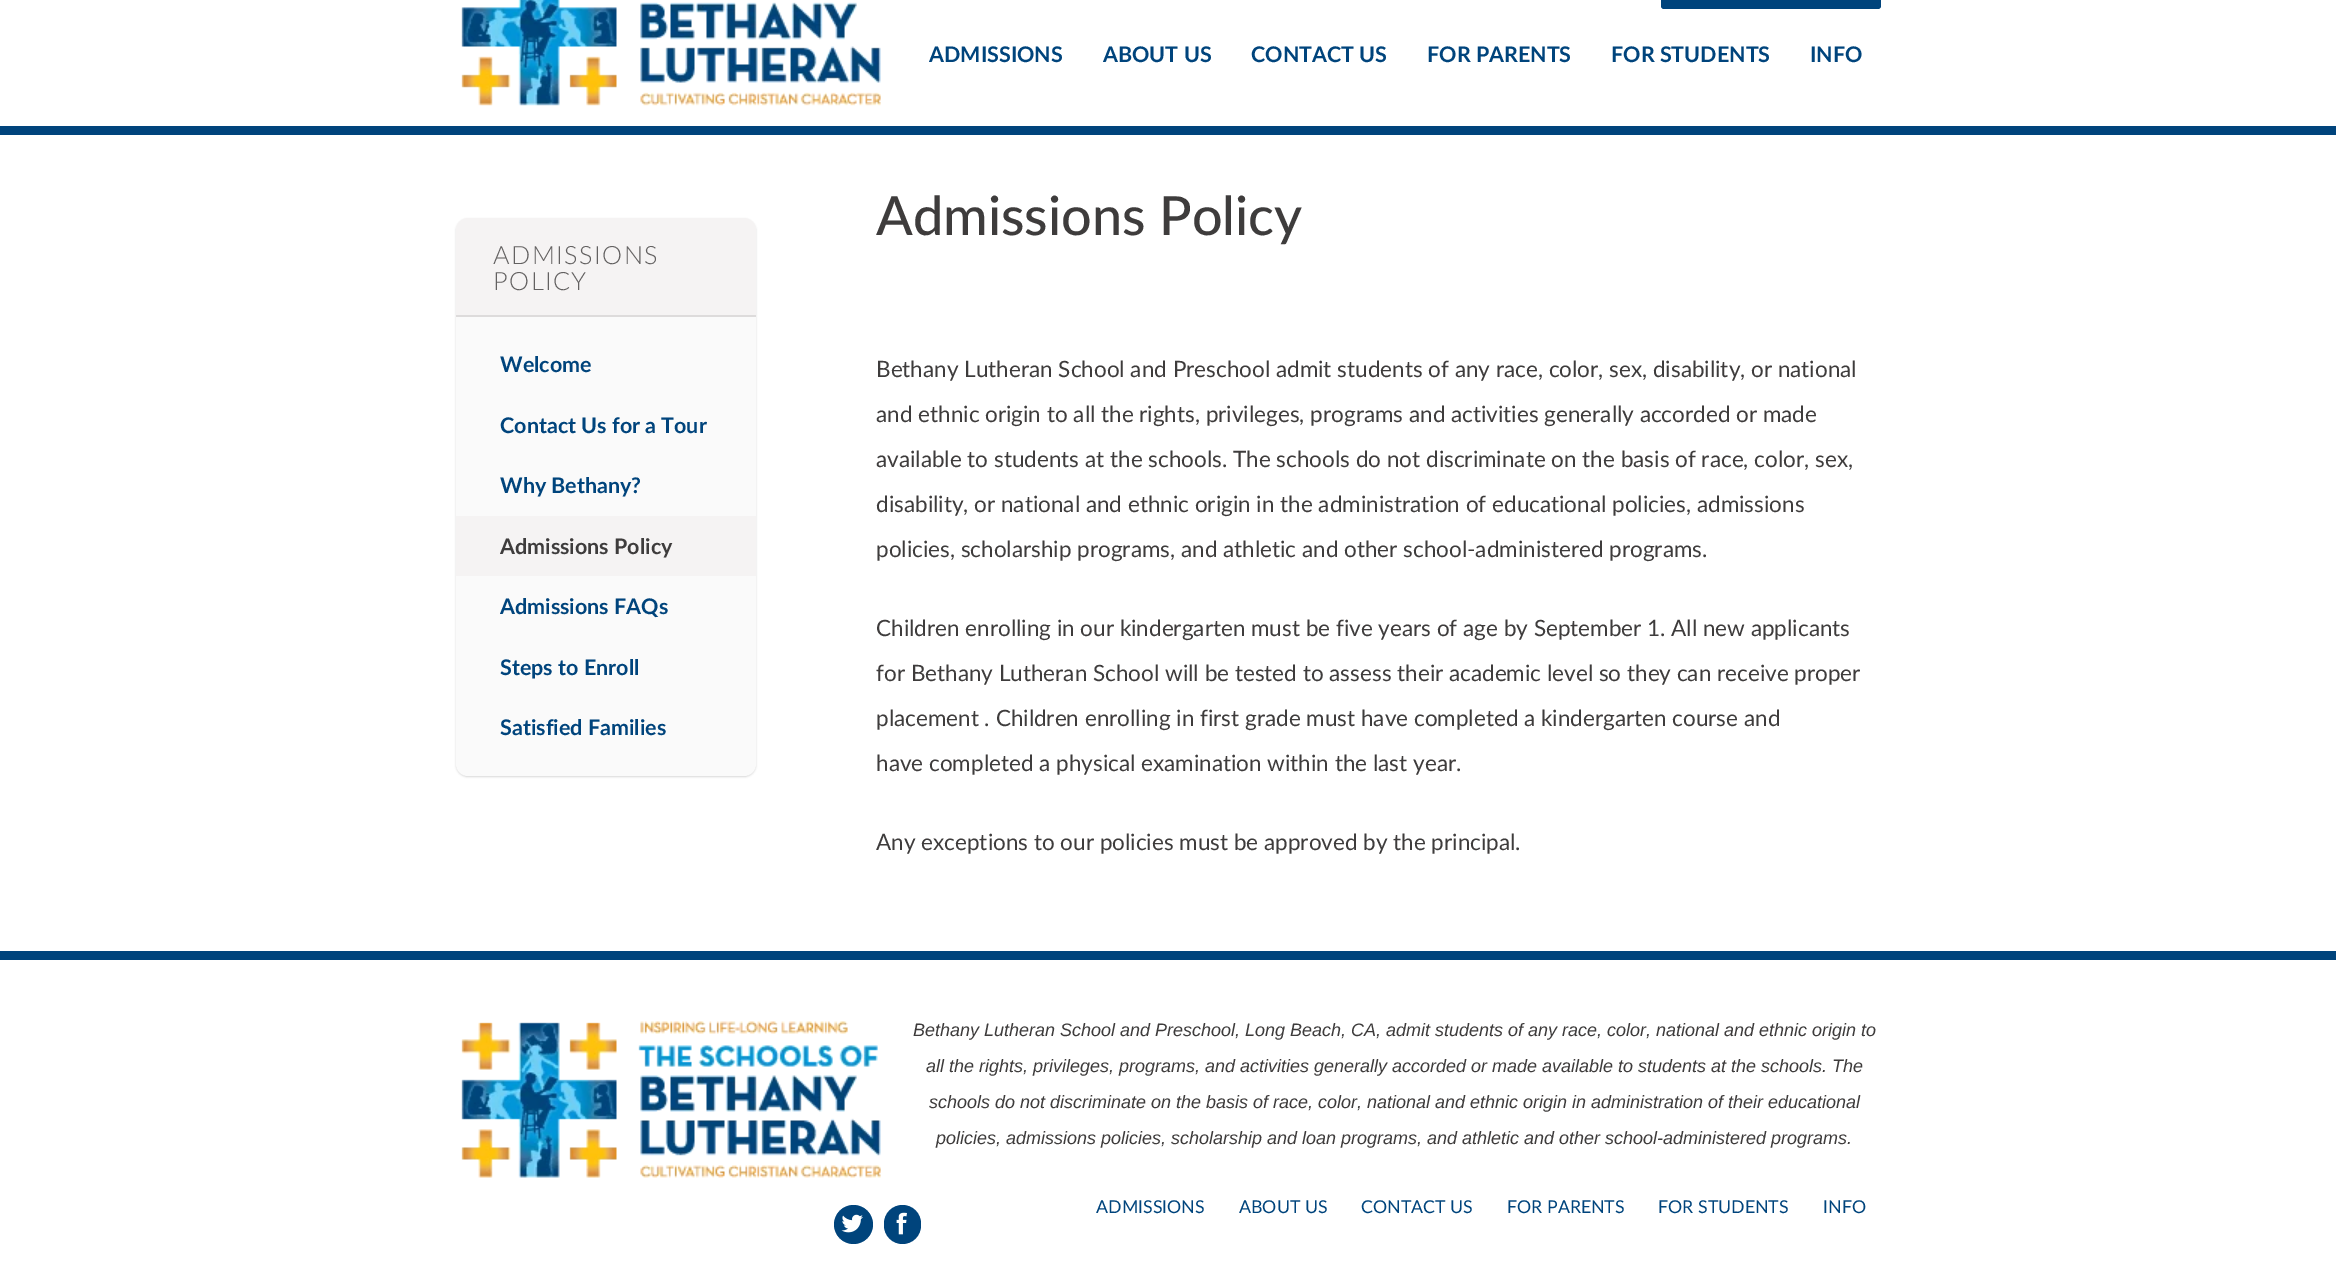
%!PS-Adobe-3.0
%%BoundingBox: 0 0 2336 1270
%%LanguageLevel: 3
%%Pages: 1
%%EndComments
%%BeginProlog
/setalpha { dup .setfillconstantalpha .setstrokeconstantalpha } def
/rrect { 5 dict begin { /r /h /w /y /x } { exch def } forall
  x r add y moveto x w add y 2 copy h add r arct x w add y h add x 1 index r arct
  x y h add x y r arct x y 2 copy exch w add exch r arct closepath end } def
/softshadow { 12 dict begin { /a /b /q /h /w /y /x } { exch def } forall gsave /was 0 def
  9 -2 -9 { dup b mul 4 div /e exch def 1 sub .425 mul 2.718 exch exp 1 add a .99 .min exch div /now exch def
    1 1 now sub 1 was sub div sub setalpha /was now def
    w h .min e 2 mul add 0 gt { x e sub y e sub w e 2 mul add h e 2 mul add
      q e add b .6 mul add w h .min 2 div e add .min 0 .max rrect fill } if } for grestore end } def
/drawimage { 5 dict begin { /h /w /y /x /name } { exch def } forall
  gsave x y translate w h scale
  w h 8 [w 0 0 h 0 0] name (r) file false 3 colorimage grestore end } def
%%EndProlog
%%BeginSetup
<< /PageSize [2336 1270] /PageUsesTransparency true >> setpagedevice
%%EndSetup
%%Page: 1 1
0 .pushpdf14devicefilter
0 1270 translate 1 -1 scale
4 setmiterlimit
1 setgray
0 0 2336 1270 rectfill
0 0.267 0.486 setrgbcolor
0 126 2336 9 rectfill
(images/1.raw) 461 0 420 106 drawimage
1661 -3 220 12 3 rrect fill
0 setgray
456 219 300 558 12 1 0.15 softshadow
0.98 setgray
456 218 300 558 12 rrect fill
0.961 0.953 0.953 setrgbcolor
newpath 468 218 moveto 744 218 lineto 750.5 218 756 223.5 756 230 curveto 756 317 lineto 456 317 lineto 456 230 lineto 456 223.5 461.5 218 468 218 curveto closepath fill
0.867 0.859 0.859 setrgbcolor
456 315 300 2 rectfill
0.961 0.953 0.953 setrgbcolor
456 516 300 60 rectfill
0 0.267 0.486 setrgbcolor
0 951 2336 9 rectfill
(images/2.raw) 461 1021 420 157 drawimage
newpath 853.5 1224.5 19.5 0 360 arc closepath fill
(images/3.raw) 841 1214 22 19 drawimage
884 1205 37 39 18.5 rrect fill
(images/4.raw) 896 1212 11 23 drawimage
/Lato-Bold [21.5 0 0 -21.5 0 0] selectfont
929 62 moveto (ADMISSIONS) show
1103 62 moveto (ABOUT US) show
1251 62 moveto (CONTACT US) show
1427 62 moveto (FOR PARENTS) show
1611 62 moveto (FOR STUDENTS) show
1810 62 moveto (INFO) show
/Lato-Medium [54 0 0 -54 0 0] selectfont
0.243 0.235 0.235 setrgbcolor
876 235 moveto (Admissions Policy) show
/Lato-Light [25.25 0 0 -25.25 0 0] selectfont
0.388 0.38 0.38 setrgbcolor
493 264 moveto 1.5 0 (ADMISSIONS) ashow
493 290 moveto 1.5 0 (POLICY) ashow
/Lato-Bold [21.5 0 0 -21.5 0 0] selectfont
0 0.267 0.486 setrgbcolor
500 372 moveto (Welcome) show
500 433 moveto (Contact Us for a Tour) show
500 493 moveto (Why Bethany?) show
0.243 0.235 0.235 setrgbcolor
500 554 moveto (Admissions Policy) show
0 0.267 0.486 setrgbcolor
500 614 moveto (Admissions FAQs) show
500 675 moveto (Steps to Enroll) show
500 735 moveto (Satisfied Families) show
/Lato-Regular [22.5 0 0 -22.5 0 0] selectfont
0.243 0.235 0.235 setrgbcolor
876 377 moveto (Bethany Lutheran School and Preschool admit students of any race, color, sex, disability, or national) show
876 422 moveto (and ethnic origin to all the rights, privileges, programs and activities generally accorded or made) show
876 467 moveto (available to students at the schools. The schools do not discriminate on the basis of race, color, sex,) show
876 512 moveto (disability, or national and ethnic origin in the administration of educational policies, admissions) show
876 557 moveto (policies, scholarship programs, and athletic and other school-administered programs.) show
876 636 moveto (Children enrolling in our kindergarten must be five years of age by September 1. All new applicants) show
876 681 moveto (for Bethany Lutheran School will be tested to assess their academic level so they can receive proper) show
876 726 moveto (placement . Children enrolling in first grade must have completed a kindergarten course and) show
876 771 moveto (have completed a physical examination within the last year.) show
876 850 moveto (Any exceptions to our policies must be approved by the principal.) show
/LiberationSans-Italic [18 0 0 -18 0 0] selectfont
913 1036 moveto (Bethany Lutheran School and Preschool, Long Beach, CA, admit students of any race, color, national and ethnic origin to) show
926 1072 moveto (all the rights, privileges, programs, and activities generally accorded or made available to students at the schools. The) show
929 1108 moveto (schools do not discriminate on the basis of race, color, national and ethnic origin in administration of their educational) show
936 1144 moveto (policies, admissions policies, scholarship and loan programs, and athletic and other school-administered programs.) show
/Lato-Regular [17.75 0 0 -17.75 0 0] selectfont
0 0.267 0.486 setrgbcolor
1096 1213 moveto (ADMISSIONS) show
1239 1213 moveto (ABOUT US) show
1361 1213 moveto (CONTACT US) show
1507 1213 moveto (FOR PARENTS) show
1658 1213 moveto (FOR STUDENTS) show
1823 1213 moveto (INFO) show
.poppdf14devicefilter showpage
%%EOF
